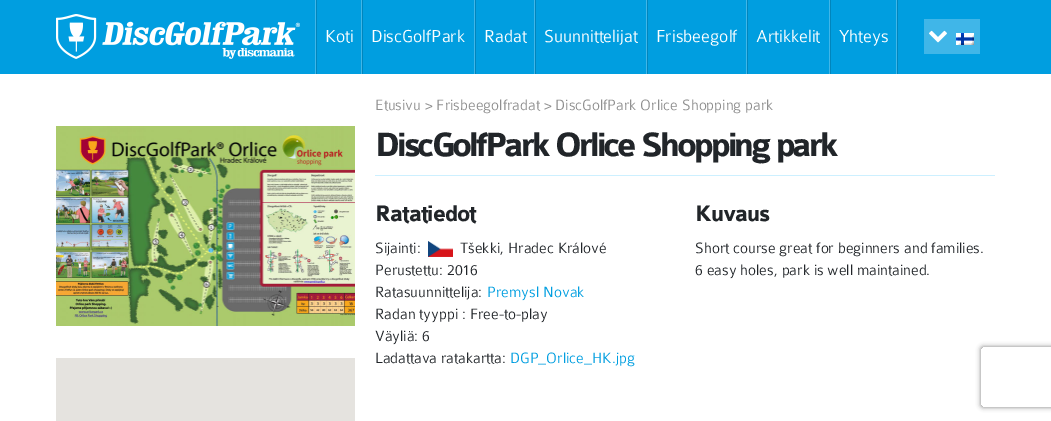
%!PS-Adobe-3.0
%%BoundingBox: 0 0 1051 421
%%LanguageLevel: 3
%%Pages: 1
%%EndComments
%%BeginProlog
/setalpha { dup .setfillconstantalpha .setstrokeconstantalpha } def
/rrect { 5 dict begin { /r /h /w /y /x } { exch def } forall
  x r add y moveto x w add y 2 copy h add r arct x w add y h add x 1 index r arct
  x y h add x y r arct x y 2 copy exch w add exch r arct closepath end } def
/softshadow { 12 dict begin { /a /b /q /h /w /y /x } { exch def } forall gsave /was 0 def
  9 -2 -9 { dup b mul 4 div /e exch def 1 sub .425 mul 2.718 exch exp 1 add a .99 .min exch div /now exch def
    1 1 now sub 1 was sub div sub setalpha /was now def
    w h .min e 2 mul add 0 gt { x e sub y e sub w e 2 mul add h e 2 mul add
      q e add b .6 mul add w h .min 2 div e add .min 0 .max rrect fill } if } for grestore end } def
/drawimage { 5 dict begin { /h /w /y /x /name } { exch def } forall
  gsave x y translate w h scale
  w h 8 [w 0 0 h 0 0] name (r) file false 3 colorimage grestore end } def
%%EndProlog
%%BeginSetup
<< /PageSize [1051 421] /PageUsesTransparency true >> setpagedevice
%%EndSetup
%%Page: 1 1
0 .pushpdf14devicefilter
0 421 translate 1 -1 scale
4 setmiterlimit
1 setgray
0 0 1051 421 rectfill
0 0.62 0.878 setrgbcolor
0 0 1051 74 rectfill
(images/1.raw) 56 14 244 45 drawimage
0.251 0.714 0.91 setrgbcolor
361 0 1 74 rectfill
0.004 0.522 0.737 setrgbcolor
316 0 1 74 rectfill
0.251 0.714 0.91 setrgbcolor
315 0 1 74 rectfill
474 0 1 74 rectfill
0.004 0.522 0.737 setrgbcolor
362 0 1 74 rectfill
0.251 0.714 0.91 setrgbcolor
534 0 1 74 rectfill
0.004 0.522 0.737 setrgbcolor
475 0 1 74 rectfill
0.251 0.714 0.91 setrgbcolor
646 0 1 74 rectfill
0.004 0.522 0.737 setrgbcolor
535 0 1 74 rectfill
0.251 0.714 0.91 setrgbcolor
746 0 1 74 rectfill
0.004 0.522 0.737 setrgbcolor
647 0 1 74 rectfill
0.251 0.714 0.91 setrgbcolor
829 0 1 74 rectfill
0.004 0.522 0.737 setrgbcolor
747 0 1 74 rectfill
0.251 0.714 0.91 setrgbcolor
896 0 1 74 rectfill
0.004 0.522 0.737 setrgbcolor
830 0 1 74 rectfill
897 0 1 74 rectfill
0.251 0.714 0.91 setrgbcolor
924 19 56 35 rectfill
(images/2.raw) 929 30 18 13 drawimage
(images/3.raw) 956 33 18 12 drawimage
(images/4.raw) 56 126 299 200 drawimage
0.898 0.89 0.875 setrgbcolor
56 358 299 63 rectfill
0.804 0.941 1 setrgbcolor
375 175 620 1 rectfill
(images/5.raw) 428 241 25 16 drawimage
gsave
newpath 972 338 moveto 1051 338 lineto 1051 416 lineto 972 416 lineto closepath 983 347 moveto 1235 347 lineto 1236 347 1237 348 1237 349 curveto 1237 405 lineto 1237 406 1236 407 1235 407 curveto 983 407 lineto 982 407 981 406 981 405 curveto 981 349 lineto 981 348 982 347 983 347 curveto closepath eoclip newpath
0.502 setgray
981 347 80 60 2 2.5 1 softshadow
grestore
/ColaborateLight-Light [18.5 0 0 -18.5 0 0] selectfont
1 setgray
325 42 moveto (Koti) show
371 42 moveto (DiscGolfPark) show
484 42 moveto (Radat) show
544 42 moveto (Suunnittelijat) show
656 42 moveto (Frisbeegolf) show
756 42 moveto (Artikkelit) show
839 42 moveto (Yhteys) show
/ColaborateLight-Light [16 0 0 -16 0 0] selectfont
0.561 setgray
375 110 moveto (Etusivu > Frisbeegolfradat > DiscGolfPark Orlice Shopping park) show
/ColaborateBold-Bold [36 0 0 -36 0 0] selectfont
0.129 0.145 0.161 setrgbcolor
375 156 moveto -3 0 (DiscGolfPark Orlice Shopping park) ashow
/ColaborateBold-Bold [24 0 0 -24 0 0] selectfont
375 221 moveto -1 0 (Ratatiedot) ashow
/ColaborateLight-Light [16 0 0 -16 0 0] selectfont
375 253 moveto (Sijainti:) show
460 253 moveto (Tšekki, Hradec Králové) show
375 275 moveto (Perustettu: 2016) show
375 297 moveto (Ratasuunnittelija:) show
0 0.62 0.878 setrgbcolor
487 297 moveto (Premysl Novak) show
0.129 0.145 0.161 setrgbcolor
375 319 moveto (Radan tyyppi : Free-to-play) show
375 341 moveto (Väyliä: 6) show
375 363 moveto (Ladattava ratakartta:) show
0 0.62 0.878 setrgbcolor
510 363 moveto (DGP_Orlice_HK.jpg) show
/ColaborateBold-Bold [24 0 0 -24 0 0] selectfont
0.129 0.145 0.161 setrgbcolor
695 221 moveto -1 0 (Kuvaus) ashow
/ColaborateLight-Light [16 0 0 -16 0 0] selectfont
695 253 moveto (Short course great for beginners and families.) show
695 275 moveto (6 easy holes, park is well maintained.) show
.poppdf14devicefilter showpage
%%EOF
